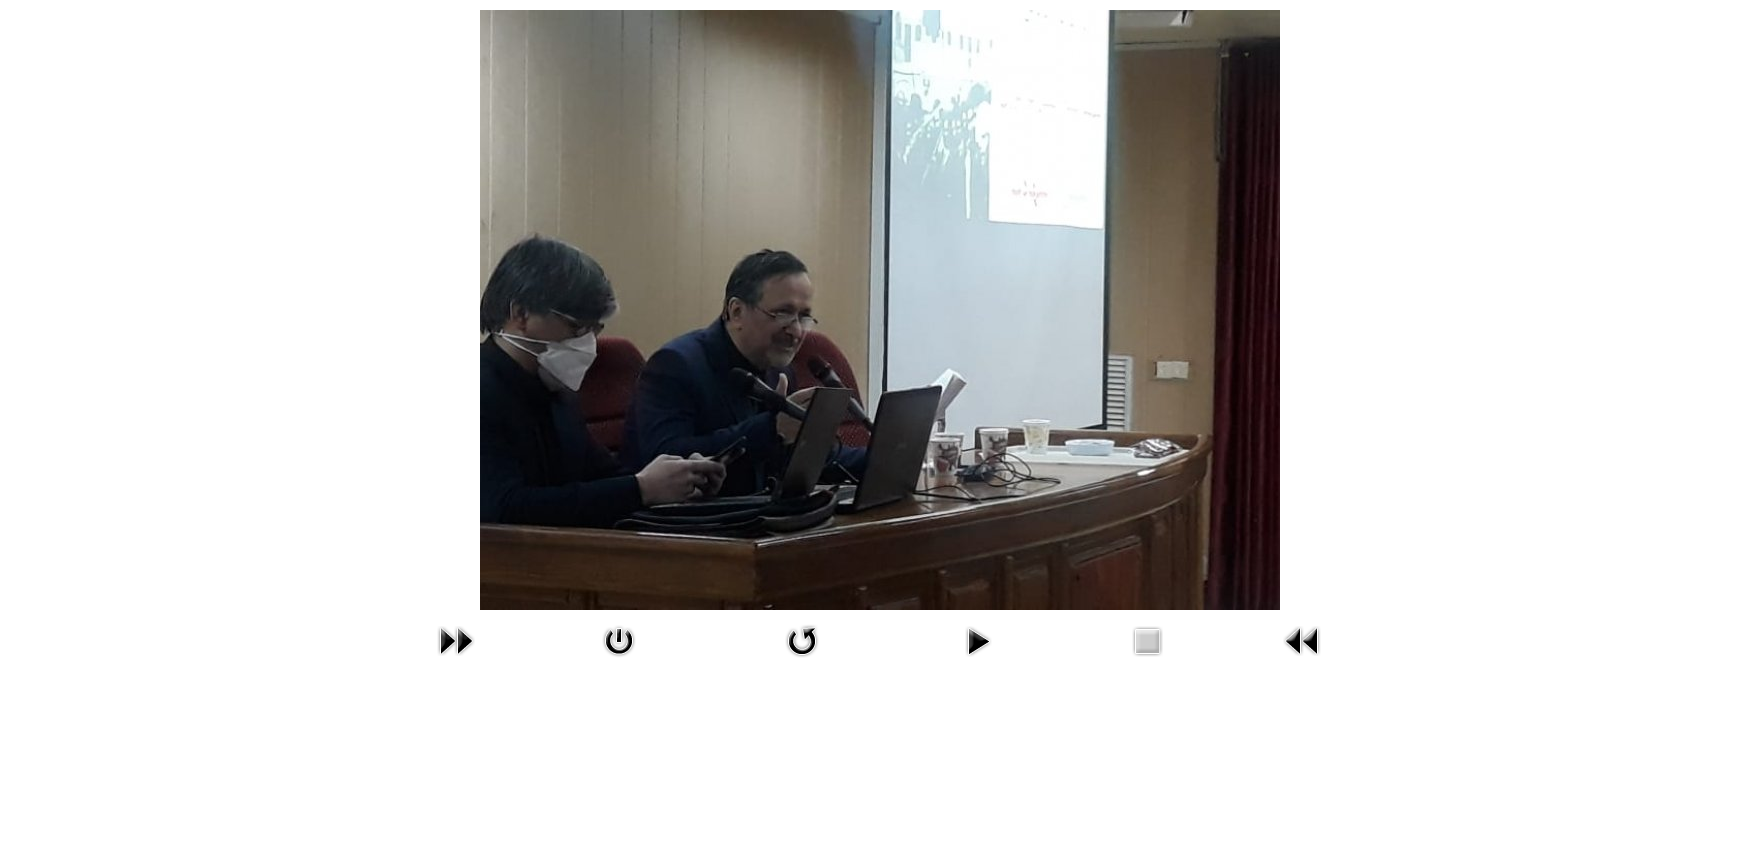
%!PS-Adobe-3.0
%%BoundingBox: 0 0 1759 847
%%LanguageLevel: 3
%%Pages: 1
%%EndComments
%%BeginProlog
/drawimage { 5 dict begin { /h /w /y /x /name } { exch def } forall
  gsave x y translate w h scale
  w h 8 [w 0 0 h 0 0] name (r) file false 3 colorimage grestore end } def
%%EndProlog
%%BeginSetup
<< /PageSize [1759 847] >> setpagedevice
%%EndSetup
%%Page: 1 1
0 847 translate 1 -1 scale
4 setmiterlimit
1 setgray
0 0 1759 847 rectfill
(images/1.raw) 480 10 800 600 drawimage
(images/2.raw) 437 626 38 30 drawimage
(images/3.raw) 602 625 34 33 drawimage
(images/4.raw) 785 624 34 34 drawimage
(images/5.raw) 965 626 27 31 drawimage
(images/6.raw) 1132 626 31 31 drawimage
(images/7.raw) 1283 626 38 30 drawimage
showpage
%%EOF
